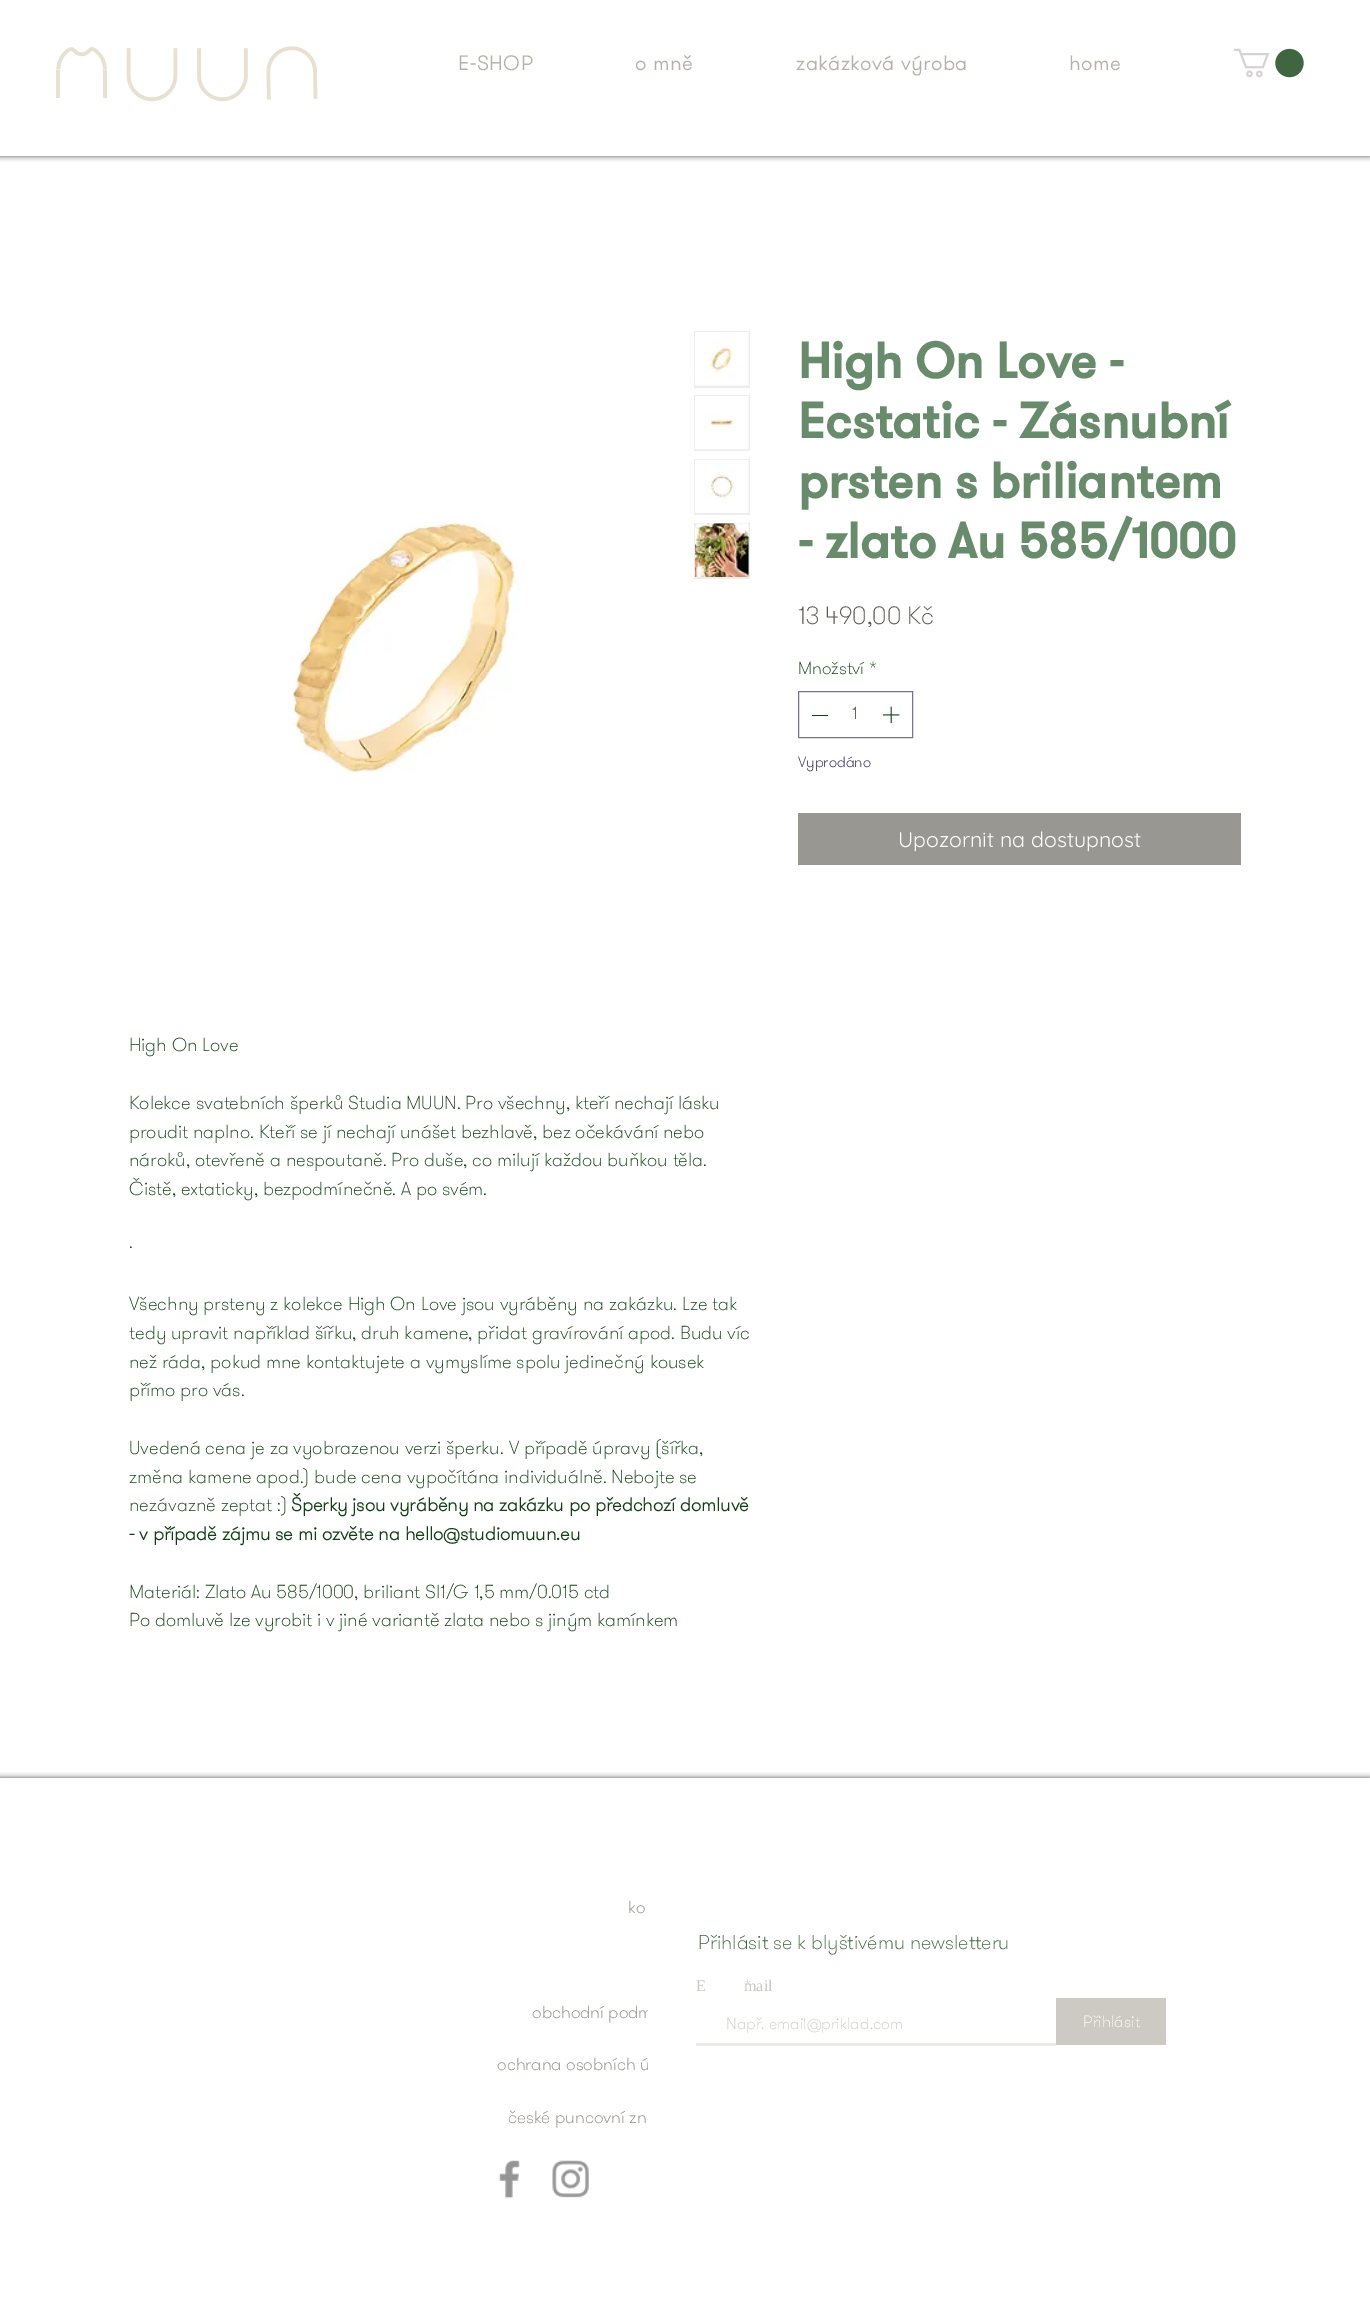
%!PS-Adobe-3.0
%%BoundingBox: 0 0 1370 2308
%%LanguageLevel: 3
%%Pages: 1
%%EndComments
%%BeginProlog
/setalpha { dup .setfillconstantalpha .setstrokeconstantalpha } def
/rrect { 5 dict begin { /r /h /w /y /x } { exch def } forall
  x r add y moveto x w add y 2 copy h add r arct x w add y h add x 1 index r arct
  x y h add x y r arct x y 2 copy exch w add exch r arct closepath end } def
/softshadow { 12 dict begin { /a /b /q /h /w /y /x } { exch def } forall gsave /was 0 def
  9 -2 -9 { dup b mul 4 div /e exch def 1 sub .425 mul 2.718 exch exp 1 add a .99 .min exch div /now exch def
    1 1 now sub 1 was sub div sub setalpha /was now def
    w h .min e 2 mul add 0 gt { x e sub y e sub w e 2 mul add h e 2 mul add
      q e add b .6 mul add w h .min 2 div e add .min 0 .max rrect fill } if } for grestore end } def
/drawimage { 5 dict begin { /h /w /y /x /name } { exch def } forall
  gsave x y translate w h scale
  w h 8 [w 0 0 h 0 0] name (r) file false 3 colorimage grestore end } def
%%EndProlog
%%BeginSetup
<< /PageSize [1370 2308] /PageUsesTransparency true >> setpagedevice
%%EndSetup
%%Page: 1 1
0 .pushpdf14devicefilter
0 2308 translate 1 -1 scale
4 setmiterlimit
1 setgray
0 0 1370 2308 rectfill
gsave
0 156 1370 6 rectclip
0 setgray
0 -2 1370 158 0 3 0.7 softshadow
grestore
(images/1.raw) 56 46 262 56 drawimage
(images/2.raw) 1233 48 71 30 drawimage
0.471 0.451 0.58 setrgbcolor
798.5 691.5 114 46 rectstroke
0.059 0.247 0.071 setrgbcolor
812 715 16 1 rectfill
(images/3.raw) 883 706 17 18 drawimage
0.6 0.592 0.573 setrgbcolor
798 813 443 52 rectfill
0.929 setgray
694 331 56 57 rectfill
(images/4.raw) 695 332 54 54 drawimage
694 395 56 56 rectfill
(images/5.raw) 695 396 54 54 drawimage
694 459 56 56 rectfill
(images/6.raw) 695 459 54 54 drawimage
694 523 56 56 rectfill
(images/7.raw) 695 523 54 54 drawimage
(images/8.raw) 291 522 229 251 drawimage
gsave
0 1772 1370 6 rectclip
0 setgray
0 1778 1370 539 0 3 0.7 softshadow
grestore
0.922 0.918 0.906 setrgbcolor
696 2043 360 3 rectfill
0.8 0.792 0.761 setrgbcolor
1056 1998 110 47 rectfill
(images/9.raw) 498 2160 22 39 drawimage
(images/10.raw) 552 2160 37 38 drawimage
/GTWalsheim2-Bold [20 0 0 -20 0 0] selectfont
0.722 0.694 0.655 setrgbcolor
458 70 moveto 1 0 (E-SHOP) ashow
635 70 moveto 1 0 (o mně) ashow
796 70 moveto 1 0 (zakázková výroba) ashow
1069 70 moveto 1 0 (home) ashow
/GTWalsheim-Bold [50 0 0 -50 0 0] selectfont
0.408 0.549 0.42 setrgbcolor
798 378 moveto (High On Love -) show
798 438 moveto (Ecstatic - Zásnubní) show
798 498 moveto (prsten s briliantem) show
798 558 moveto (- zlato Au 585/1000) show
/GTWalsheim-Thin [25 0 0 -25 0 0] selectfont
0.361 0.349 0.329 setrgbcolor
798 624 moveto (13 490,00 Kč) show
/GTWalsheim-Thin [17.5 0 0 -17.5 0 0] selectfont
0.059 0.247 0.071 setrgbcolor
798 674 moveto (Množství) show
869 674 moveto (*) show
852 719 moveto (1) show
/GTWalsheim-Thin [15 0 0 -15 0 0] selectfont
0.118 0.082 0.302 setrgbcolor
798 767 moveto (Vyprodáno) show
/Quicksand-Regular [21.25 0 0 -21.25 0 0] selectfont
1 setgray
898 847 moveto (Upozornit na dostupnost) show
/GTWalsheim-Thin [18.75 0 0 -18.75 0 0] selectfont
0.059 0.247 0.071 setrgbcolor
129 1051 moveto (High On Love) show
129 1109 moveto (Kolekce svatebních šperků Studia MUUN. Pro všechny, kteří nechají lásku) show
129 1138 moveto (proudit naplno. Kteří se jí nechají unášet bezhlavě, bez očekávání nebo) show
129 1166 moveto (nároků, otevřeně a nespoutaně. Pro duše, co milují každou buňkou těla.) show
129 1195 moveto (Čistě, extaticky, bezpodmínečně. A po svém.) show
129 1253 moveto (·) show
129 1310 moveto (Všechny prsteny z kolekce High On Love jsou vyráběny na zakázku. Lze tak) show
129 1339 moveto (tedy upravit například šířku, druh kamene, přidat gravírování apod. Budu víc) show
129 1368 moveto (než ráda, pokud mne kontaktujete a vymyslíme spolu jedinečný kousek) show
129 1396 moveto (přímo pro vás.) show
129 1454 moveto (Uvedená cena je za vyobrazenou verzi šperku. V případě úpravy \(šířka,) show
129 1483 moveto (změna kamene apod.\) bude cena vypočítána individuálně. Nebojte se) show
129 1511 moveto (nezávazně zeptat :\)) show
/GTWalsheim2-Bold [18.75 0 0 -18.75 0 0] selectfont
291 1511 moveto (Šperky jsou vyráběny na zakázku po předchozí domluvě) show
129 1540 moveto (- v případě zájmu se mi ozvěte na hello@studiomuun.eu) show
/GTWalsheim-Thin [18.75 0 0 -18.75 0 0] selectfont
129 1598 moveto (Materiál: Zlato Au 585/1000, briliant SI1/G 1,5 mm/0.015 ctd) show
129 1626 moveto (Po domluvě lze vyrobit i v jiné variantě zlata nebo s jiným kamínkem) show
/GTWalsheim-Thin [17.5 0 0 -17.5 0 0] selectfont
0.541 0.522 0.49 setrgbcolor
628 1913 moveto (ko) show
532 2018 moveto (obchodní podm) show
497 2070 moveto (ochrana osobních ú) show
508 2123 moveto (české puncovní zn) show
1 setgray
648 2010 4 60 rectfill
/GTWalsheim-Thin [20 0 0 -20 0 0] selectfont
0.247 0.396 0.255 setrgbcolor
698 1949 moveto (Přihlásit se k blyštivému newsletteru) show
/LiberationSerif-Regular [16.25 0 0 -16.25 0 0] selectfont
0.8 0.792 0.761 setrgbcolor
696 1991 moveto (E‑mail) show
/GTWalsheim-Thin [16.25 0 0 -16.25 0 0] selectfont
744 1991 moveto (*) show
726 2029 moveto (Např. email@priklad.com) show
1 setgray
1083 2027 moveto (Přihlásit) show
.poppdf14devicefilter showpage
%%EOF
